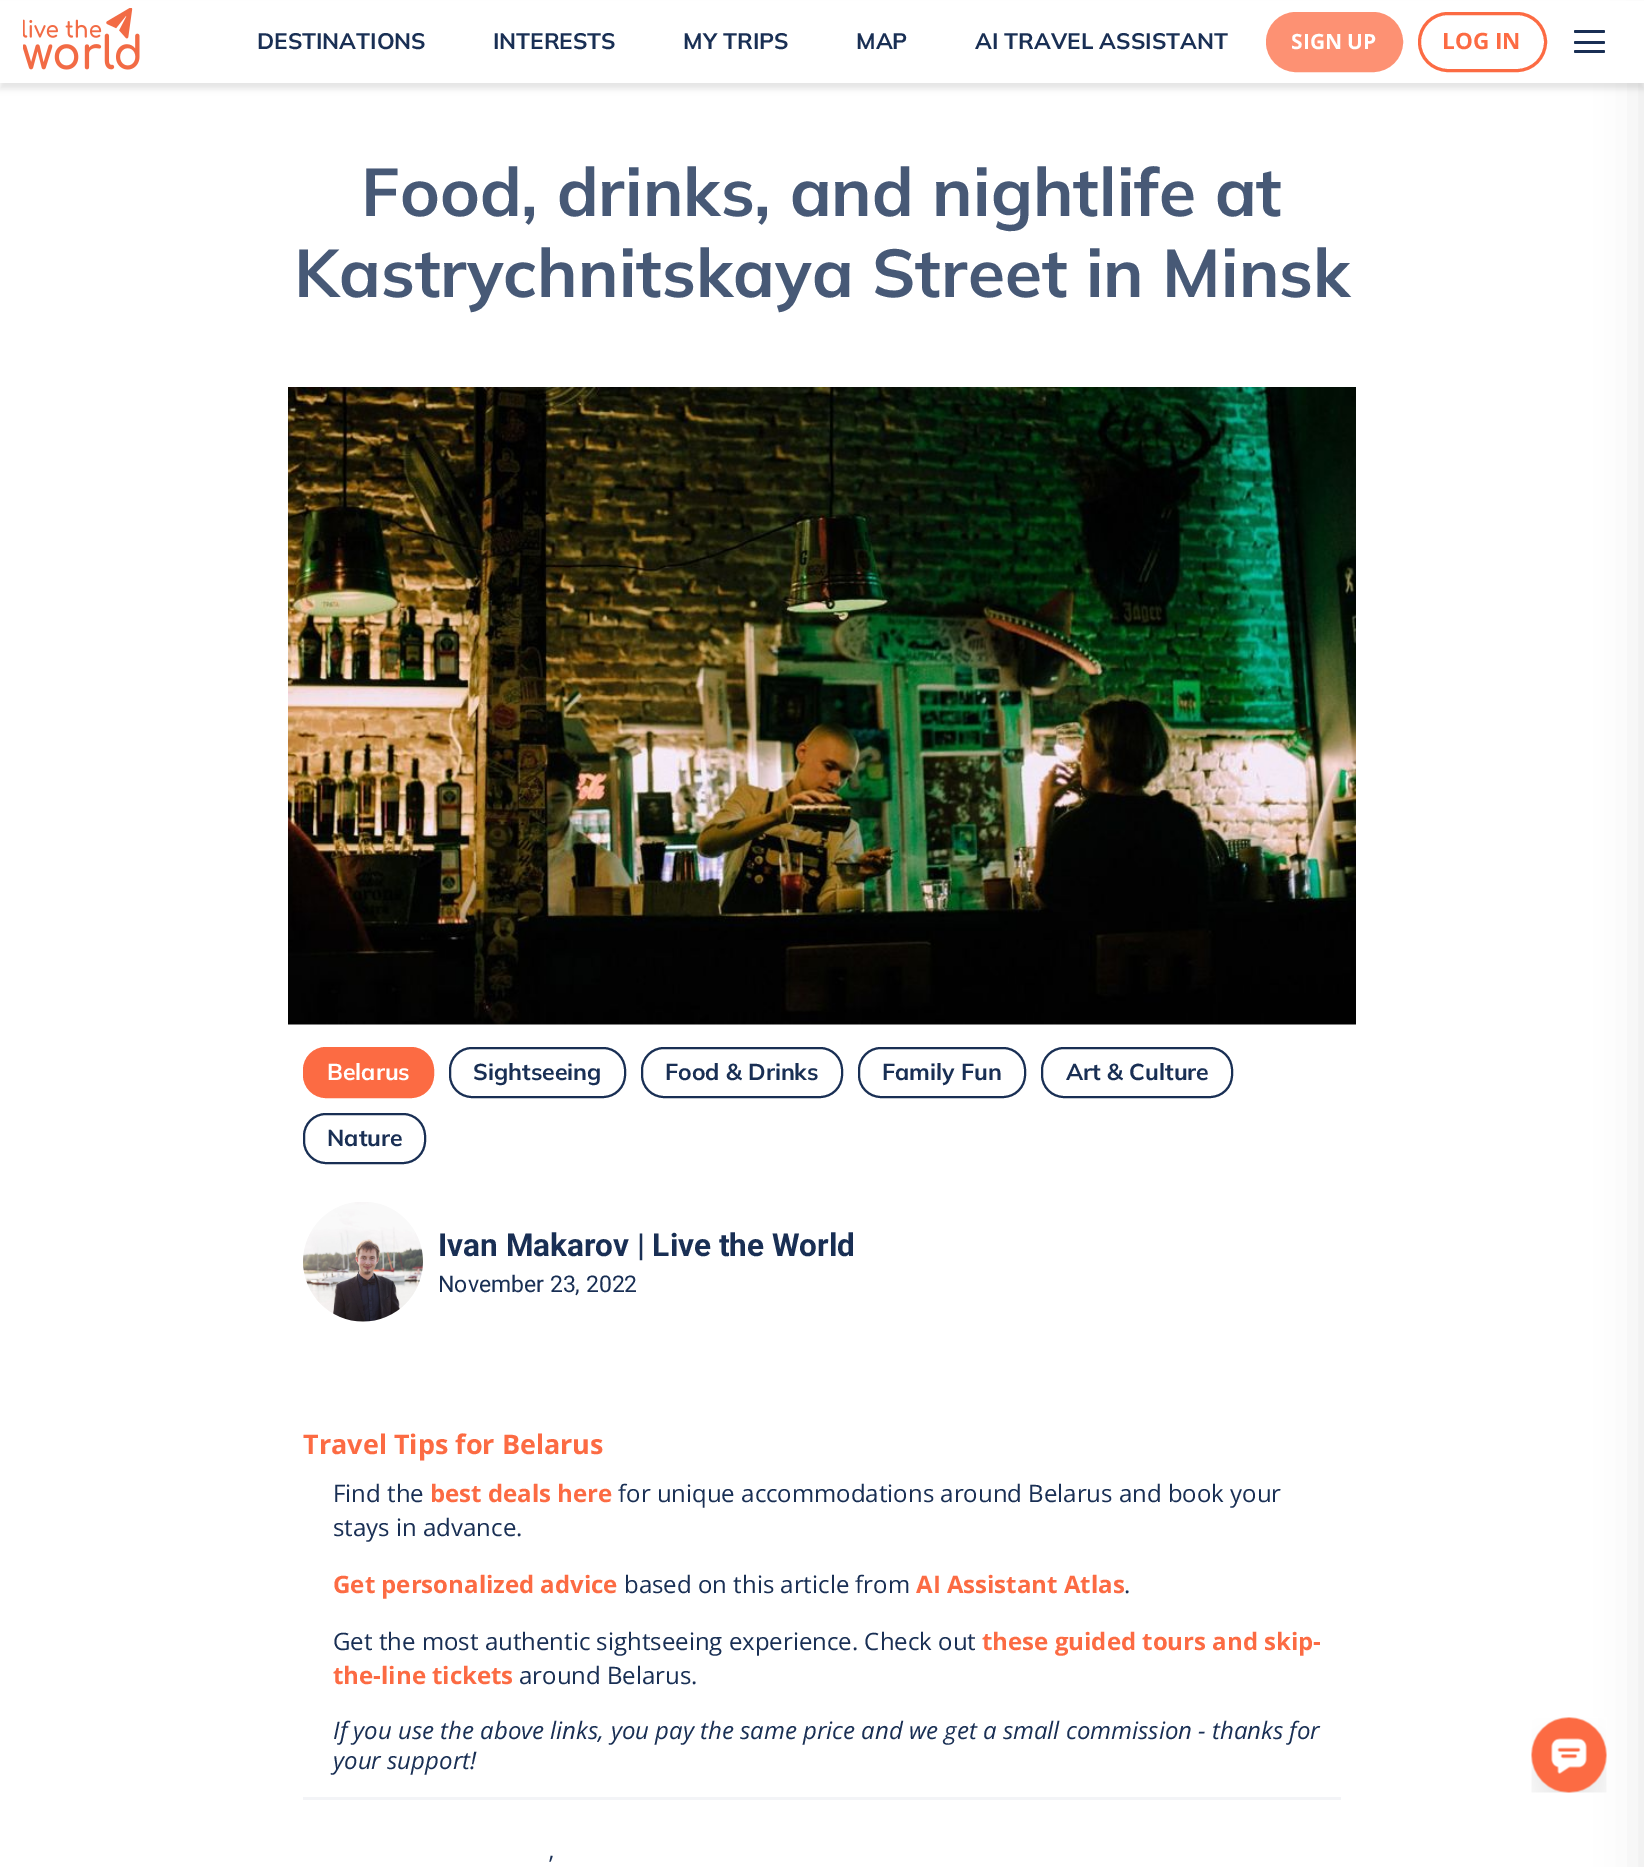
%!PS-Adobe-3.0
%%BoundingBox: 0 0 1644 1867
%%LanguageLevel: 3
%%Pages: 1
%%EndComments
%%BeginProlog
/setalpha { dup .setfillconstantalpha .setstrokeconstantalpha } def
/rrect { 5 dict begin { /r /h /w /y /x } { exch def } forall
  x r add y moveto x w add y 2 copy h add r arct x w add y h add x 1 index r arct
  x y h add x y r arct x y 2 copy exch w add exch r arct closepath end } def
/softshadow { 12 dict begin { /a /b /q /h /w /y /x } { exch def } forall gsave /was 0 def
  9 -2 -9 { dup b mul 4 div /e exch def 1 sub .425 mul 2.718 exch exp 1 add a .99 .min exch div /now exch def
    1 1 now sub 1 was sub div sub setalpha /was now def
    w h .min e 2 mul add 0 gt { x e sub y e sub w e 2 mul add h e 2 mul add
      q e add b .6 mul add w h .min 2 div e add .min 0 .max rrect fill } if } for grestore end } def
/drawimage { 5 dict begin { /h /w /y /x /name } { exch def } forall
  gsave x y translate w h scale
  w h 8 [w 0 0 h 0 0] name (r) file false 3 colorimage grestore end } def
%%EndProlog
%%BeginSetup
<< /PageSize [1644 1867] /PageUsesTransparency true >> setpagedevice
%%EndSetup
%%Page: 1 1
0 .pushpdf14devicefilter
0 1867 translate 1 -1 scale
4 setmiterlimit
1 setgray
0 0 1644 1867 rectfill
0 setgray
0 6 1644 83 0 3 0.1 softshadow
1644 30 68 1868 0 22.5 0.1 softshadow
1 setgray
0 1 1644 82 rectfill
(images/1.raw) 23 8 117 62 drawimage
0.992 0.569 0.451 setrgbcolor
1267.5 13.5 134 57 28.5 rrect gsave fill grestore
3 setlinewidth
stroke
0.988 0.42 0.263 setrgbcolor
1419.5 13.5 126 57 28.5 rrect stroke
0.098 0.184 0.329 setrgbcolor
1574 30 31 3 1.5 rrect fill
1574 41 31 3 1.5 rrect fill
1574 50 31 3 1.5 rrect fill
(images/2.raw) 288 387 1068 638 drawimage
0.988 0.42 0.263 setrgbcolor
304 1048 129 49 22 rrect gsave fill grestore
2 setlinewidth
stroke
0.098 0.184 0.329 setrgbcolor
450 1048 175 49 22 rrect stroke
642 1048 200 49 22 rrect stroke
859 1048 166 49 22 rrect stroke
1042 1048 190 49 22 rrect stroke
304 1114 121 49 22 rrect stroke
(images/3.raw) 303 1202 120 120 drawimage
0.953 0.957 0.969 setrgbcolor
303 1797 1038 3 rectfill
(images/4.raw) 1531 1717 76 76 drawimage
/Mulish-Bold [22.5 0 0 -22.5 0 0] selectfont
0.098 0.184 0.329 setrgbcolor
257 49 moveto (DESTINATIONS) show
493 49 moveto (INTERESTS) show
683 49 moveto (MY TRIPS) show
856 49 moveto (MAP) show
975 49 moveto (AI TRAVEL ASSISTANT) show
/OpenSans-Bold [21 0 0 -21 0 0] selectfont
1 setgray
1291 49 moveto (SIGN UP) show
/OpenSans-Bold [22.5 0 0 -22.5 0 0] selectfont
0.988 0.42 0.263 setrgbcolor
1442 49 moveto (LOG IN) show
/Mulish-Bold [67.5 0 0 -67.5 0 0] selectfont
0.278 0.349 0.463 setrgbcolor
361 216 moveto (Food, drinks, and nightlife at) show
294 297 moveto (Kastrychnitskaya Street in Minsk) show
/Mulish-Bold [23 0 0 -23 0 0] selectfont
1 setgray
327 1080 moveto (Belarus) show
0.098 0.184 0.329 setrgbcolor
473 1080 moveto (Sightseeing) show
665 1080 moveto (Food & Drinks) show
882 1080 moveto (Family Fun) show
1066 1080 moveto (Art & Culture) show
327 1146 moveto (Nature) show
/Roboto-Bold [31.5 0 0 -31.5 0 0] selectfont
438 1256 moveto (Ivan Makarov | Live the World) show
/Roboto-Regular [23 0 0 -23 0 0] selectfont
438 1292 moveto (November 23, 2022) show
/OpenSans-Bold [27 0 0 -27 0 0] selectfont
0.988 0.42 0.263 setrgbcolor
303 1454 moveto (Travel Tips for Belarus) show
/OpenSans-Regular [24 0 0 -24 0 0] selectfont
0.098 0.184 0.329 setrgbcolor
333 1502 moveto (Find the) show
/OpenSans-Bold [24 0 0 -24 0 0] selectfont
0.988 0.42 0.263 setrgbcolor
430 1502 moveto (best deals here) show
/OpenSans-Regular [24 0 0 -24 0 0] selectfont
0.098 0.184 0.329 setrgbcolor
618 1502 moveto (for unique accommodations around Belarus and book your) show
333 1536 moveto (stays in advance.) show
/OpenSans-Bold [24 0 0 -24 0 0] selectfont
0.988 0.42 0.263 setrgbcolor
333 1593 moveto (Get personalized advice) show
/OpenSans-Regular [24 0 0 -24 0 0] selectfont
0.098 0.184 0.329 setrgbcolor
624 1593 moveto (based on this article from) show
/OpenSans-Bold [24 0 0 -24 0 0] selectfont
0.988 0.42 0.263 setrgbcolor
916 1593 moveto (AI Assistant Atlas) show
/OpenSans-Regular [24 0 0 -24 0 0] selectfont
0.098 0.184 0.329 setrgbcolor
1124 1593 moveto (.) show
333 1650 moveto (Get the most authentic sightseeing experience. Check out) show
/OpenSans-Bold [24 0 0 -24 0 0] selectfont
0.988 0.42 0.263 setrgbcolor
982 1650 moveto (these guided tours and skip-) show
333 1684 moveto (the-line tickets) show
/OpenSans-Regular [24 0 0 -24 0 0] selectfont
0.098 0.184 0.329 setrgbcolor
519 1684 moveto (around Belarus.) show
/OpenSans-Italic [24 0 0 -24 0 0] selectfont
333 1739 moveto (If you use the above links, you pay the same price and we get a small commission - thanks for) show
333 1769 moveto (your support!) show
/OpenSans-Regular [24 0 0 -24 0 0] selectfont
549 1873 moveto (’) show
.poppdf14devicefilter showpage
%%EOF
